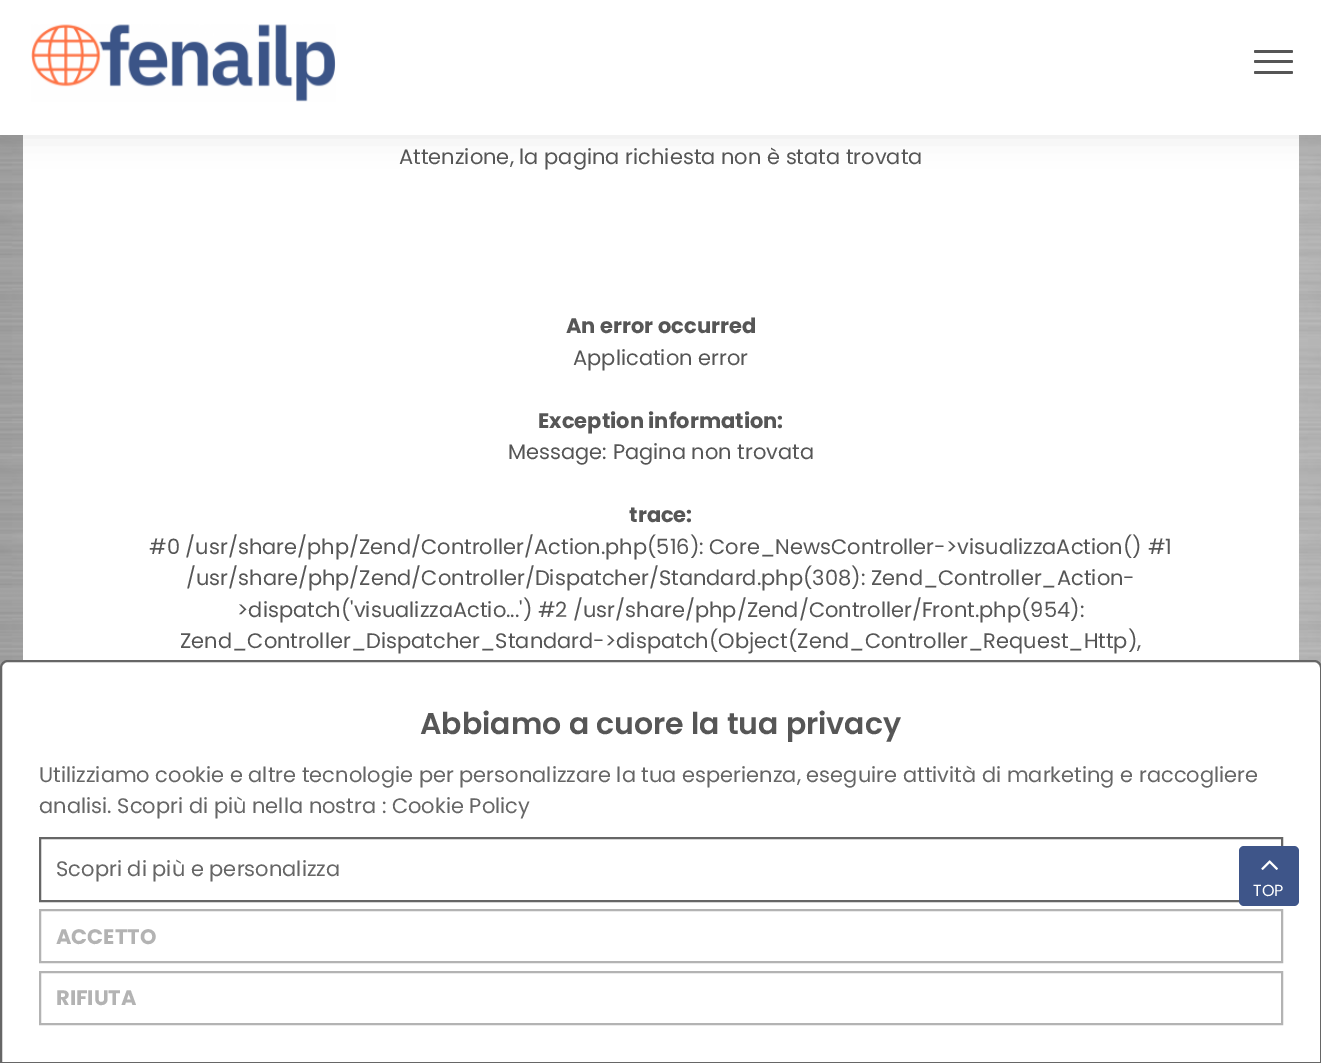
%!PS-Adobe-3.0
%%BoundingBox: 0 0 1321 1063
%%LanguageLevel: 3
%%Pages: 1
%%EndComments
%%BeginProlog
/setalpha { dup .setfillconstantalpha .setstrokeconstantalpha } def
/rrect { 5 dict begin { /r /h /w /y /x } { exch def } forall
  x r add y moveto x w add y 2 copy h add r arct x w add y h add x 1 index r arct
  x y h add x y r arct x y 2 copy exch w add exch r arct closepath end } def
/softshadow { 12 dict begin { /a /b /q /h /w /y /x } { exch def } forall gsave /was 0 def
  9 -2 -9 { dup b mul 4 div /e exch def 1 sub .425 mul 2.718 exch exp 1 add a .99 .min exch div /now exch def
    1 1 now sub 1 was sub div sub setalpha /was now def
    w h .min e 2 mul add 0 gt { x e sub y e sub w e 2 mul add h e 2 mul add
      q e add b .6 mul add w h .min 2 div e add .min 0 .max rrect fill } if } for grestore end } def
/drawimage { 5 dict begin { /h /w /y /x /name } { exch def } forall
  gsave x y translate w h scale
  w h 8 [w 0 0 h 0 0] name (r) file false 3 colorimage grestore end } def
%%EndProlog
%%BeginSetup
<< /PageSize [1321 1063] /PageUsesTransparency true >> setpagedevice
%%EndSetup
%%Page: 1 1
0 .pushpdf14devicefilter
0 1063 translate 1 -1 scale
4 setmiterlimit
1 setgray
0 0 1321 1063 rectfill
(images/1.raw) 0 135 1321 533 drawimage
23 135 1276 525 rectfill
0 setgray
0 0 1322 135 0 15 0.1 softshadow
1 setgray
0 0 1321 135 rectfill
(images/2.raw) 31 24 305 78 drawimage
0.337 setgray
1254 50 39 3 1.5 rrect fill
1254 60 39 3 1.5 rrect fill
1254 71 39 3 1.5 rrect fill
1 setgray
newpath 8 661 moveto 1314 661 lineto 1318 661 1321 664 1321 668 curveto 1321 1063 lineto 1 1063 lineto 1 668 lineto 1 664 4 661 8 661 curveto closepath gsave fill grestore
0.4 setgray
2 setlinewidth
stroke
40 838 1242 63 rectstroke
0.702 setgray
40 910 1242 52 rectstroke
40 972 1242 52 rectstroke
0.243 0.333 0.537 setrgbcolor
1239 846 60 60 5 rrect fill
(images/3.raw) 1261 860 17 10 drawimage
/Poppins-Regular [21 0 0 -21 0 0] selectfont
0.337 setgray
399 164 moveto (Attenzione, la pagina richiesta non è stata trovata) show
/Poppins-Bold [21 0 0 -21 0 0] selectfont
566 333 moveto (An error occurred) show
/Poppins-Regular [21 0 0 -21 0 0] selectfont
573 365 moveto (Application error) show
/Poppins-Bold [21 0 0 -21 0 0] selectfont
538 428 moveto (Exception information:) show
/Poppins-Regular [21 0 0 -21 0 0] selectfont
508 459 moveto (Message: Pagina non trovata) show
/Poppins-Bold [21 0 0 -21 0 0] selectfont
629 522 moveto (trace:) show
/Poppins-Regular [21 0 0 -21 0 0] selectfont
149 554 moveto (#0 /usr/share/php/Zend/Controller/Action.php\(516\): Core_NewsController->visualizzaAction\(\) #1) show
186 585 moveto (/usr/share/php/Zend/Controller/Dispatcher/Standard.php\(308\): Zend_Controller_Action-) show
237 617 moveto (>dispatch\('visualizzaActio...'\) #2 /usr/share/php/Zend/Controller/Front.php\(954\):) show
180 648 moveto (Zend_Controller_Dispatcher_Standard->dispatch\(Object\(Zend_Controller_Request_Http\),) show
/Poppins-SemiBold [30 0 0 -30 0 0] selectfont
420 734 moveto (Abbiamo a cuore la tua privacy) show
/Poppins-Regular [21 0 0 -21 0 0] selectfont
0.4 setgray
39 782 moveto (Utilizziamo cookie e altre tecnologie per personalizzare la tua esperienza, eseguire attività di marketing e raccogliere) show
39 813 moveto (analisi. Scopri di più nella nostra : Cookie Policy) show
56 876 moveto (Scopri di più e personalizza) show
/Poppins-Bold [21 0 0 -21 0 0] selectfont
0.702 setgray
56 944 moveto (ACCETTO) show
56 1005 moveto (RIFIUTA) show
/Poppins-Regular [16 0 0 -16 0 0] selectfont
1 setgray
1253 896 moveto (TOP) show
.poppdf14devicefilter showpage
%%EOF
